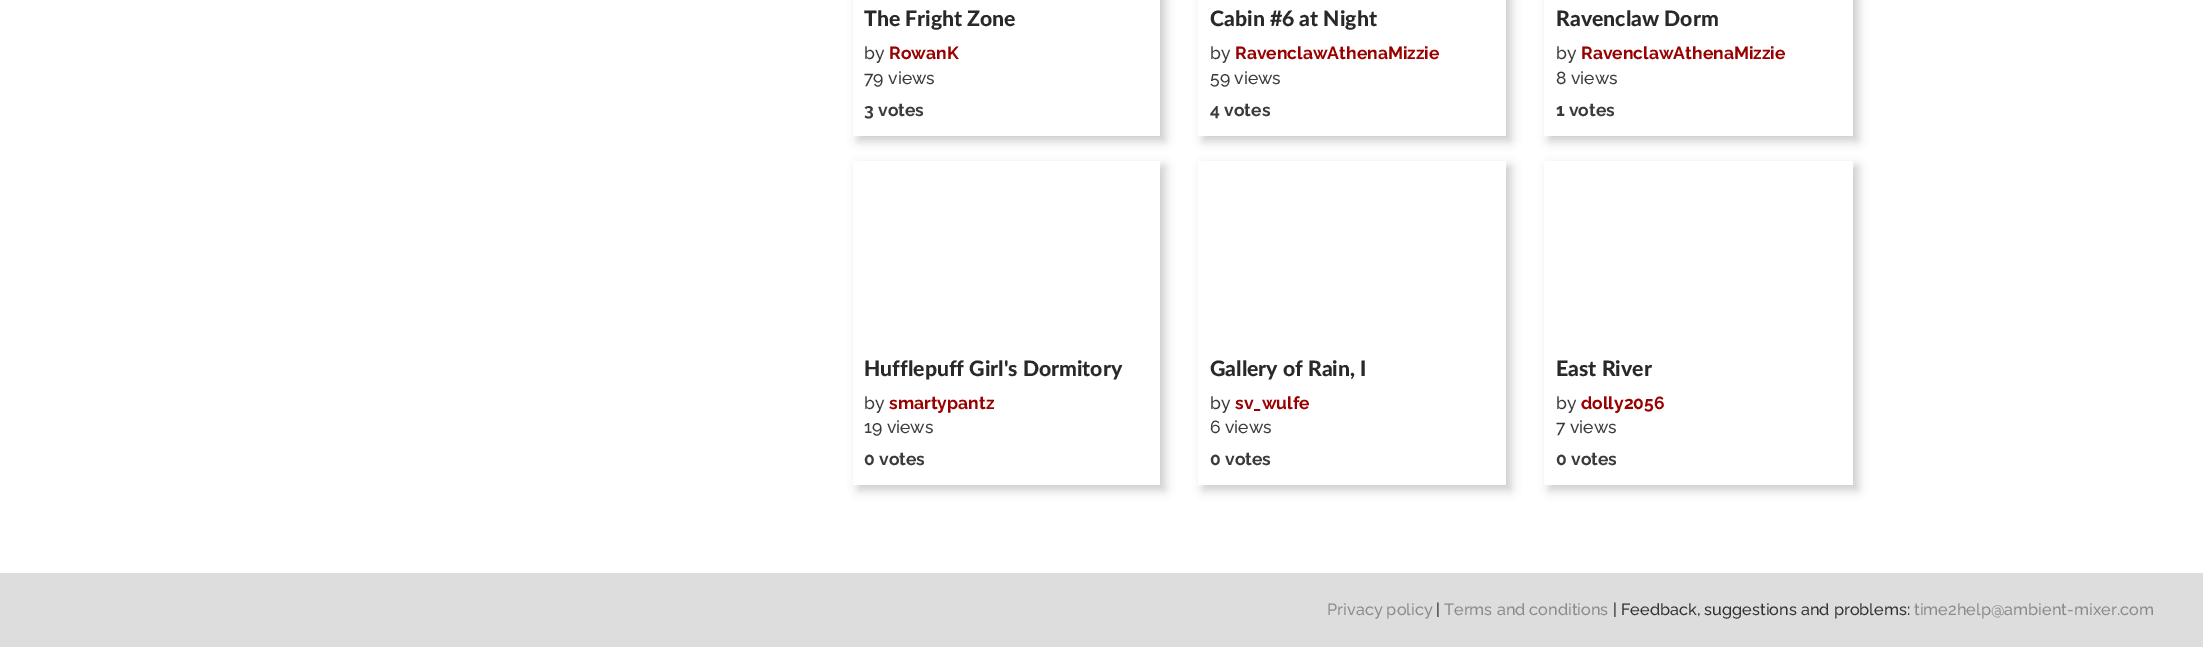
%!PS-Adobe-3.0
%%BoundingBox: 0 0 2203 647
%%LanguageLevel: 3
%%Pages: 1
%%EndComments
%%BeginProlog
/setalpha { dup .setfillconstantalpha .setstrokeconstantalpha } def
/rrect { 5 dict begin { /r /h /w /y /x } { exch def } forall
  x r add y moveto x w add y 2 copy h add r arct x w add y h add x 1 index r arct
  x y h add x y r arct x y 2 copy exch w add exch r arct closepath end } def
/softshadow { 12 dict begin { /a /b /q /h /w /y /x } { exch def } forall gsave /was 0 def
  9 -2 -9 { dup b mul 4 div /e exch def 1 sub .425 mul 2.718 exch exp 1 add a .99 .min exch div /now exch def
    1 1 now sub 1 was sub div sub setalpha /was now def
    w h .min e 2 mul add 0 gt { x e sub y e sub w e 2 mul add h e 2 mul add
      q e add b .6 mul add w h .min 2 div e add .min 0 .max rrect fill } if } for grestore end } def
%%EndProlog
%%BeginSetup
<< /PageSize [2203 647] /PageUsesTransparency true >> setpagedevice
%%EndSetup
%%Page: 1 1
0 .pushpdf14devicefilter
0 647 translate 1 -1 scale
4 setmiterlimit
1 setgray
0 0 2203 647 rectfill
gsave
newpath 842 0 moveto 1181 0 lineto 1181 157 lineto 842 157 lineto closepath 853 -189 moveto 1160 -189 lineto 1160 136 lineto 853 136 lineto closepath eoclip newpath
0 setgray
858 -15 307 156 0 5 0.2 softshadow
grestore
gsave
newpath 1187 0 moveto 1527 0 lineto 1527 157 lineto 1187 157 lineto closepath 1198 -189 moveto 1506 -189 lineto 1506 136 lineto 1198 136 lineto closepath eoclip newpath
0 setgray
1203 -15 308 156 0 5 0.2 softshadow
grestore
gsave
newpath 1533 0 moveto 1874 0 lineto 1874 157 lineto 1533 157 lineto closepath 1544 -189 moveto 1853 -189 lineto 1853 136 lineto 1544 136 lineto closepath eoclip newpath
0 setgray
1549 -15 309 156 0 5 0.2 softshadow
grestore
gsave
newpath 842 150 moveto 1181 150 lineto 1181 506 lineto 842 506 lineto closepath 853 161 moveto 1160 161 lineto 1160 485 lineto 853 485 lineto closepath eoclip newpath
0 setgray
858 166 307 324 0 5 0.2 softshadow
grestore
gsave
newpath 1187 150 moveto 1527 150 lineto 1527 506 lineto 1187 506 lineto closepath 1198 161 moveto 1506 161 lineto 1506 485 lineto 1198 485 lineto closepath eoclip newpath
0 setgray
1203 166 308 324 0 5 0.2 softshadow
grestore
gsave
newpath 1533 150 moveto 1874 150 lineto 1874 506 lineto 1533 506 lineto closepath 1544 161 moveto 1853 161 lineto 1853 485 lineto 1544 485 lineto closepath eoclip newpath
0 setgray
1549 166 309 324 0 5 0.2 softshadow
grestore
0.867 setgray
0 573 2203 74 rectfill
/Lato-Black [21.25 0 0 -21.25 0 0] selectfont
0.161 setgray
864 26 moveto (The Fright Zone) show
/Raleway-Medium [17.5 0 0 -17.5 0 0] selectfont
0.231 setgray
864 59 moveto (by) show
/Raleway-Bold [17.5 0 0 -17.5 0 0] selectfont
0.6 0 0 setrgbcolor
889 59 moveto (RowanK) show
/Raleway-Medium [17.5 0 0 -17.5 0 0] selectfont
0.231 setgray
864 84 moveto (79 views) show
/Raleway-Bold [17.5 0 0 -17.5 0 0] selectfont
864 116 moveto (3 votes) show
/Lato-Black [21.25 0 0 -21.25 0 0] selectfont
0.161 setgray
1210 26 moveto (Cabin #6 at Night) show
/Raleway-Medium [17.5 0 0 -17.5 0 0] selectfont
0.231 setgray
1210 59 moveto (by) show
/Raleway-Bold [17.5 0 0 -17.5 0 0] selectfont
0.6 0 0 setrgbcolor
1235 59 moveto (RavenclawAthenaMizzie) show
/Raleway-Medium [17.5 0 0 -17.5 0 0] selectfont
0.231 setgray
1210 84 moveto (59 views) show
/Raleway-Bold [17.5 0 0 -17.5 0 0] selectfont
1210 116 moveto (4 votes) show
/Lato-Black [21.25 0 0 -21.25 0 0] selectfont
0.161 setgray
1556 26 moveto (Ravenclaw Dorm) show
/Raleway-Medium [17.5 0 0 -17.5 0 0] selectfont
0.231 setgray
1556 59 moveto (by) show
/Raleway-Bold [17.5 0 0 -17.5 0 0] selectfont
0.6 0 0 setrgbcolor
1581 59 moveto (RavenclawAthenaMizzie) show
/Raleway-Medium [17.5 0 0 -17.5 0 0] selectfont
0.231 setgray
1556 84 moveto (8 views) show
/Raleway-Bold [17.5 0 0 -17.5 0 0] selectfont
1556 116 moveto (1 votes) show
/Lato-Black [21.25 0 0 -21.25 0 0] selectfont
0.161 setgray
864 376 moveto (Hufflepuff Girl's Dormitory) show
/Raleway-Medium [17.5 0 0 -17.5 0 0] selectfont
0.231 setgray
864 409 moveto (by) show
/Raleway-Bold [17.5 0 0 -17.5 0 0] selectfont
0.6 0 0 setrgbcolor
889 409 moveto (smartypantz) show
/Raleway-Medium [17.5 0 0 -17.5 0 0] selectfont
0.231 setgray
864 433 moveto (19 views) show
/Raleway-Bold [17.5 0 0 -17.5 0 0] selectfont
864 465 moveto (0 votes) show
/Lato-Black [21.25 0 0 -21.25 0 0] selectfont
0.161 setgray
1210 376 moveto (Gallery of Rain, I) show
/Raleway-Medium [17.5 0 0 -17.5 0 0] selectfont
0.231 setgray
1210 409 moveto (by) show
/Raleway-Bold [17.5 0 0 -17.5 0 0] selectfont
0.6 0 0 setrgbcolor
1235 409 moveto (sv_wulfe) show
/Raleway-Medium [17.5 0 0 -17.5 0 0] selectfont
0.231 setgray
1210 433 moveto (6 views) show
/Raleway-Bold [17.5 0 0 -17.5 0 0] selectfont
1210 465 moveto (0 votes) show
/Lato-Black [21.25 0 0 -21.25 0 0] selectfont
0.161 setgray
1556 376 moveto (East River) show
/Raleway-Medium [17.5 0 0 -17.5 0 0] selectfont
0.231 setgray
1556 409 moveto (by) show
/Raleway-Bold [17.5 0 0 -17.5 0 0] selectfont
0.6 0 0 setrgbcolor
1581 409 moveto (dolly2056) show
/Raleway-Medium [17.5 0 0 -17.5 0 0] selectfont
0.231 setgray
1556 433 moveto (7 views) show
/Raleway-Bold [17.5 0 0 -17.5 0 0] selectfont
1556 465 moveto (0 votes) show
/Raleway-Medium [16.25 0 0 -16.25 0 0] selectfont
0.545 setgray
1327 615 moveto (Privacy policy) show
0.2 setgray
1436 615 moveto (|) show
0.545 setgray
1444 615 moveto (Terms and conditions) show
0.2 setgray
1613 615 moveto (| Feedback, suggestions and problems:) show
0.545 setgray
1914 615 moveto (time2help@ambient-mixer.com) show
.poppdf14devicefilter showpage
%%EOF
